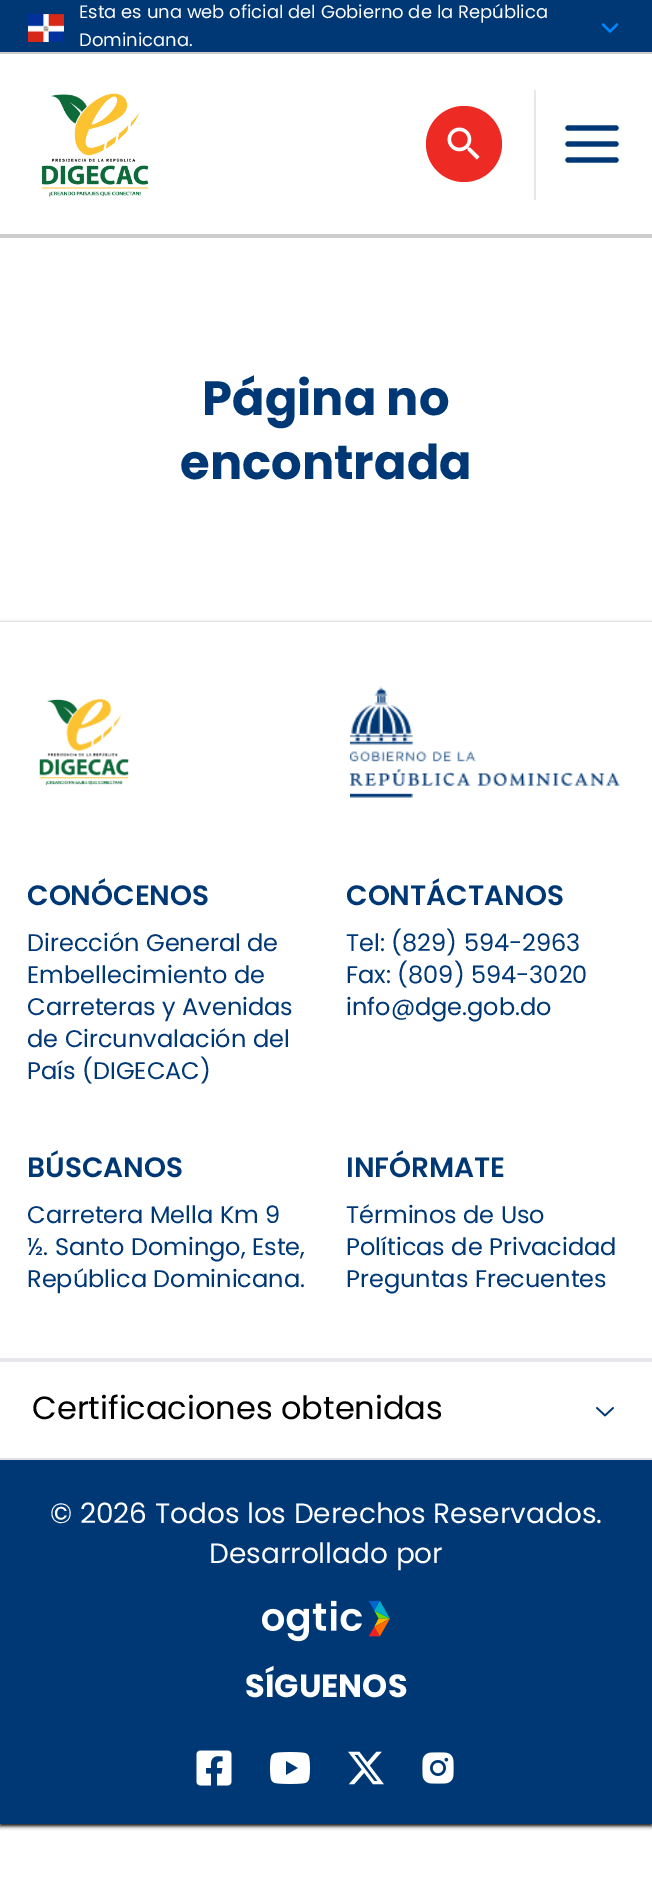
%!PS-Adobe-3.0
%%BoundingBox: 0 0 652 1892
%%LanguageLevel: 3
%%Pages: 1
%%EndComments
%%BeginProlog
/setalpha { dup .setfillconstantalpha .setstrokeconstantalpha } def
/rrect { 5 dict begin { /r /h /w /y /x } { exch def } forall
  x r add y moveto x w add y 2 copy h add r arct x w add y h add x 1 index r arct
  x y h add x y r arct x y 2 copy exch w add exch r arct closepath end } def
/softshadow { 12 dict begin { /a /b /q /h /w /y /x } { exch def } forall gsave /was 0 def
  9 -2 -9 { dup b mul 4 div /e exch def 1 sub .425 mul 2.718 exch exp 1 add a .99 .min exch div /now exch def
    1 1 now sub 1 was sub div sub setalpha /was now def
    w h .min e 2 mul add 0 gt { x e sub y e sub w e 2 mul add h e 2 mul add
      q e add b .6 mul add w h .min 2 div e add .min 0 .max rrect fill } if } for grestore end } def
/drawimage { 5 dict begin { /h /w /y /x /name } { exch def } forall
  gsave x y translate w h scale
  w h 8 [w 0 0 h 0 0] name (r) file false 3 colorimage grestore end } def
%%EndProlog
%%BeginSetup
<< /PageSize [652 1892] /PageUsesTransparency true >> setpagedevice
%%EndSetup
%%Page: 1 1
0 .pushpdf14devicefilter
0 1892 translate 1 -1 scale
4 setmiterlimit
1 setgray
0 0 652 1892 rectfill
0 0.22 0.463 setrgbcolor
0 0 652 52 rectfill
0.8 setgray
0 52 652 2 rectfill
(images/1.raw) 28 14 36 28 drawimage
0 0.529 1 setrgbcolor
2.3 setlinewidth
1 setlinecap
1 setlinejoin
newpath 603 24.5 moveto 610 31.5 lineto 617 24.5 lineto stroke
0.8 setgray
0 234 652 4 rectfill
(images/2.raw) 41 93 108 104 drawimage
0.933 0.165 0.141 setrgbcolor
newpath 464 144 38 0 360 arc closepath fill
(images/3.raw) 447 127 33 33 drawimage
0.898 0.906 0.922 setrgbcolor
534 90 2 110 1 rrect fill
0 0.22 0.463 setrgbcolor
5.3 setlinewidth
newpath 568 144 moveto 616 144 lineto 568 128 moveto 616 128 lineto 568 160 moveto 616 160 lineto stroke
gsave
newpath 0 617 moveto 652 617 lineto 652 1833 lineto 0 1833 lineto closepath 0 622 moveto 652 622 lineto 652 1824 lineto 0 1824 lineto closepath eoclip newpath
0 setgray
0 624 652 1202 0 2 1 softshadow
grestore
(images/4.raw) 39 698 91 88 drawimage
(images/5.raw) 350 686 270 112 drawimage
0.898 0.906 0.922 setrgbcolor
0 1358 652 4 rectfill
0.871 0.886 0.902 setrgbcolor
0 1458 652 2 rectfill
(images/6.raw) 596 1407 18 10 drawimage
0 0.22 0.463 setrgbcolor
0 1460 652 364 rectfill
(images/7.raw) 262 1600 128 42 drawimage
(images/8.raw) 196 1750 36 36 drawimage
(images/9.raw) 270 1752 40 32 drawimage
(images/10.raw) 348 1751 36 34 drawimage
(images/11.raw) 422 1752 32 32 drawimage
/Poppins-Regular [18 0 0 -18 0 0] selectfont
1 setgray
79 18 moveto (Esta es una web oficial del Gobierno de la República) show
79 46 moveto (Dominicana.) show
/Poppins-Bold [48 0 0 -48 0 0] selectfont
0 0.22 0.463 setrgbcolor
202 415 moveto (Página no) show
180 479 moveto (encontrada) show
/Poppins-SemiBold [28 0 0 -28 0 0] selectfont
27 905 moveto (CONÓCENOS) show
/Poppins-Regular [24 0 0 -24 0 0] selectfont
27 951 moveto (Dirección General de) show
27 983 moveto (Embellecimiento de) show
27 1015 moveto (Carreteras y Avenidas) show
27 1047 moveto (de Circunvalación del) show
27 1079 moveto (País \(DIGECAC\)) show
/Poppins-SemiBold [28 0 0 -28 0 0] selectfont
346 905 moveto (CONTÁCTANOS) show
/Poppins-Regular [24 0 0 -24 0 0] selectfont
346 951 moveto (Tel: \(829\) 594-2963) show
346 983 moveto (Fax: \(809\) 594-3020) show
346 1015 moveto (info@dge.gob.do) show
/Poppins-SemiBold [28 0 0 -28 0 0] selectfont
27 1177 moveto (BÚSCANOS) show
/Poppins-Regular [24 0 0 -24 0 0] selectfont
27 1223 moveto (Carretera Mella Km 9) show
27 1255 moveto (½. Santo Domingo, Este,) show
27 1287 moveto (República Dominicana.) show
/Poppins-SemiBold [28 0 0 -28 0 0] selectfont
346 1177 moveto (INFÓRMATE) show
/Poppins-Regular [24 0 0 -24 0 0] selectfont
346 1223 moveto (Términos de Uso) show
346 1255 moveto (Políticas de Privacidad) show
346 1287 moveto (Preguntas Frecuentes) show
/Poppins-Regular [32 0 0 -32 0 0] selectfont
0 setgray
32 1419 moveto (Certificaciones obtenidas) show
/Poppins-Regular [28 0 0 -28 0 0] selectfont
1 setgray
50 1523 moveto (© 2026 Todos los Derechos Reservados.) show
209 1563 moveto (Desarrollado por) show
/Poppins-Bold [32 0 0 -32 0 0] selectfont
245 1697 moveto (SÍGUENOS) show
.poppdf14devicefilter showpage
%%EOF
